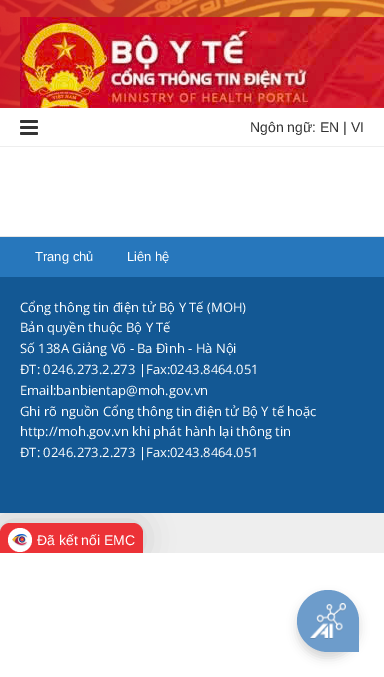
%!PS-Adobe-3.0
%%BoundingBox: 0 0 384 677
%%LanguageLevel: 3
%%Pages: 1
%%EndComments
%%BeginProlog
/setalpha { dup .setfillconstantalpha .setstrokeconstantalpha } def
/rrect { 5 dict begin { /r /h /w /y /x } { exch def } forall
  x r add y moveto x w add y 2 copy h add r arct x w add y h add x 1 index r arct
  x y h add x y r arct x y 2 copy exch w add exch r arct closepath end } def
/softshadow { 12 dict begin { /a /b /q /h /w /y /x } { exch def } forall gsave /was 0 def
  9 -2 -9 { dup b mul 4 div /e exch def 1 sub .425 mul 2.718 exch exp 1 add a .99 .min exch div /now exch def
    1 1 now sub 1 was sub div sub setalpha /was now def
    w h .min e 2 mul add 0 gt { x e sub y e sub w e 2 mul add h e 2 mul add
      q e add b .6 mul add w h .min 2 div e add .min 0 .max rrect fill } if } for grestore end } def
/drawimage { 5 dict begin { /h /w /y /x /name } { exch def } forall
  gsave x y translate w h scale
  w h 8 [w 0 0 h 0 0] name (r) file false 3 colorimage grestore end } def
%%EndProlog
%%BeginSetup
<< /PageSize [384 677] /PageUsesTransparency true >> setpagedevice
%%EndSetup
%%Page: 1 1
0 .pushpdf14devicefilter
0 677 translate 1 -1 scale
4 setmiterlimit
1 setgray
0 0 384 677 rectfill
0.933 setgray
0 513 384 40 rectfill
(images/1.raw) 0 0 384 108 drawimage
(images/2.raw) 20 17 364 91 drawimage
0 146 384 1 rectfill
(images/3.raw) 20 120 18 15 drawimage
0.898 setgray
0 236 384 1 rectfill
0.153 0.467 0.737 setrgbcolor
0 237 384 40 rectfill
gsave
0 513 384 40 rectclip
0 setgray
0 522 143 34 10 15 0.15 softshadow
grestore
0.075 0.345 0.58 setrgbcolor
0 277 384 236 rectfill
0.925 0.196 0.216 setrgbcolor
newpath 10 523 moveto 133 523 lineto 138.5 523 143 527.5 143 533 curveto 143 553 lineto 0 553 lineto 0 533 lineto 0 527.5 4.5 523 10 523 curveto closepath fill
1 setgray
newpath 20 540 12 0 360 arc closepath fill
(images/4.raw) 12 534 16 12 drawimage
0 setgray
297 596 62 62 31 5 0.16 softshadow
0.427 0.612 0.796 setrgbcolor
newpath 328 590 moveto 345 590 359 604 359 621 curveto 359 652 lineto 328 652 lineto 311 652 297 638 297 621 curveto 297 604 311 590 328 590 curveto closepath fill
(images/5.raw) 310 603 36 36 drawimage
/LiberationSans-Regular [14 0 0 -14 0 0] selectfont
0.2 setgray
250 132 moveto (Ngôn ngữ: EN | VI) show
/LiberationSans-Regular [13 0 0 -13 0 0] selectfont
1 setgray
35 261 moveto (Trang chủ) show
127 261 moveto (Liên hệ) show
/OpenSans-Regular [13 0 0 -13 0 0] selectfont
20 312 moveto (Cổng thông tin điện tử Bộ Y Tế \(MOH\)) show
20 332 moveto (Bản quyền thuộc Bộ Y Tế) show
20 353 moveto (Số 138A Giảng Võ - Ba Đình - Hà Nội) show
20 374 moveto (ĐT: 0246.273.2.273 |Fax:0243.8464.051) show
20 395 moveto (Email:banbientap@moh.gov.vn) show
20 416 moveto (Ghi rõ nguồn Cổng thông tin điện tử Bộ Y tế hoặc) show
20 436 moveto (http://moh.gov.vn khi phát hành lại thông tin) show
20 457 moveto (ĐT: 0246.273.2.273 |Fax:0243.8464.051) show
/LiberationSans-Regular [14 0 0 -14 0 0] selectfont
37 545 moveto (Đã kết nối EMC) show
.poppdf14devicefilter showpage
%%EOF
